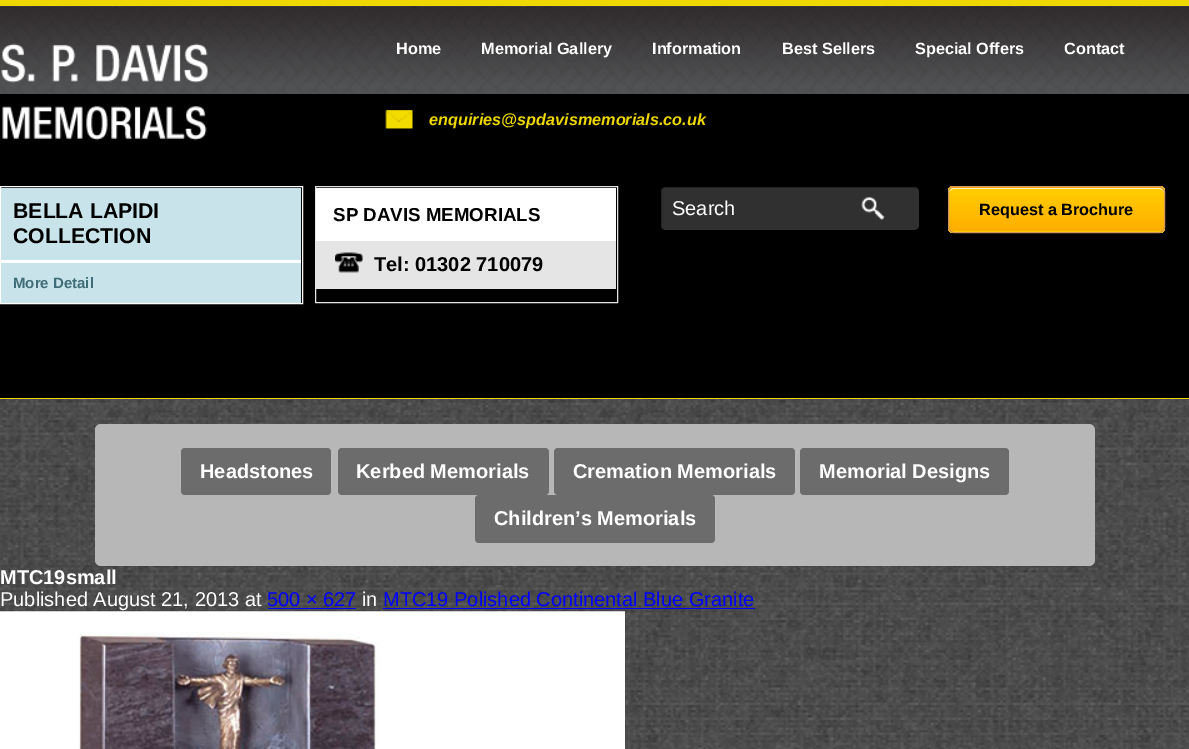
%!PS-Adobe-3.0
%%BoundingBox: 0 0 1189 749
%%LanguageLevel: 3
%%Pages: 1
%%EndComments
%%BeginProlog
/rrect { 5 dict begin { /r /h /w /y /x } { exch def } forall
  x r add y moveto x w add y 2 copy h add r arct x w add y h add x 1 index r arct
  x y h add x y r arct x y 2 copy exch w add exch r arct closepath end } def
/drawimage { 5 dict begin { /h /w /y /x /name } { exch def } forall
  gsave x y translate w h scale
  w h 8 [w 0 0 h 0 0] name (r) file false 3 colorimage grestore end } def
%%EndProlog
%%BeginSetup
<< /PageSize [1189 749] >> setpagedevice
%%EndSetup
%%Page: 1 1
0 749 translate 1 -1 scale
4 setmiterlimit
1 setgray
0 0 1189 749 rectfill
(images/1.raw) 0 6 1189 743 drawimage
0.937 0.847 0 setrgbcolor
0 0 1189 6 rectfill
(images/2.raw) 0 6 1189 88 drawimage
0 setgray
0 94 1189 304 rectfill
0.937 0.847 0 setrgbcolor
0 398 1189 1 rectfill
(images/3.raw) 1 43 207 98 drawimage
(images/4.raw) 385 110 28 19 drawimage
1 setgray
0.5 186.5 302 117 rectstroke
0.784 0.894 0.918 setrgbcolor
1 188 300 115 rectfill
1 setgray
1 260 300 3 rectfill
0.898 setgray
315.5 186.5 302 116 rectstroke
1 setgray
316 188 300 53 rectfill
0.898 setgray
316 241 300 48 rectfill
(images/5.raw) 335 252 28 21 drawimage
0.188 setgray
660.5 186.5 259 44 4.5 rrect gsave fill grestore
0 setgray
stroke
(images/6.raw) 861 197 24 23 drawimage
gsave
948 186 217 47 6 rrect clip newpath
gsave newpath 948 186 moveto 1165 186 lineto 1165 188 lineto 948 188 lineto closepath clip newpath
<< /ShadingType 2 /ColorSpace /DeviceRGB /Coords [949 144 949 188] /Extend [true true] /Function << /FunctionType 3 /Domain [0 1] /Functions [<< /FunctionType 2 /Domain [0 1] /C0 [1 0.8 0] /C1 [1 0.8 0] /N 1 >> << /FunctionType 2 /Domain [0 1] /C0 [1 0.8 0] /C1 [1 0.682 0] /N 1 >>] /Bounds [0.05] /Encode [0 1 0 1] >> >> shfill grestore
gsave newpath 948 188 moveto 1165 188 lineto 1165 231 lineto 948 231 lineto closepath clip newpath
<< /ShadingType 2 /ColorSpace /DeviceRGB /Coords [949 188 949 231] /Extend [true true] /Function << /FunctionType 3 /Domain [0 1] /Functions [<< /FunctionType 2 /Domain [0 1] /C0 [1 0.8 0] /C1 [1 0.8 0] /N 1 >> << /FunctionType 2 /Domain [0 1] /C0 [1 0.8 0] /C1 [1 0.682 0] /N 1 >>] /Bounds [0.05] /Encode [0 1 0 1] >> >> shfill grestore
gsave newpath 948 231 moveto 1165 231 lineto 1165 233 lineto 948 233 lineto closepath clip newpath
<< /ShadingType 2 /ColorSpace /DeviceRGB /Coords [949 231 949 275] /Extend [true true] /Function << /FunctionType 3 /Domain [0 1] /Functions [<< /FunctionType 2 /Domain [0 1] /C0 [1 0.8 0] /C1 [1 0.8 0] /N 1 >> << /FunctionType 2 /Domain [0 1] /C0 [1 0.8 0] /C1 [1 0.682 0] /N 1 >>] /Bounds [0.05] /Encode [0 1 0 1] >> >> shfill grestore
grestore
0.98 0.933 0.745 setrgbcolor
newpath 954 189 moveto 1159 189 lineto 1162 189 1164 191 1164 194 curveto 1164 191 1162 188 1159 188 curveto 953 188 lineto 950 189 949 191 949 194 curveto 949 191 951 189 954 189 curveto closepath fill
0.82 0.588 0.361 setrgbcolor
948.5 186.5 216 46 5.5 rrect stroke
0.718 setgray
95 424 1000 142 6 rrect fill
0.424 setgray
181 448 150 47 4 rrect fill
338 448 211 47 4 rrect fill
554 448 241 47 4 rrect fill
800 448 209 47 4 rrect fill
475 495 240 48 4 rrect fill
0 0 1 setrgbcolor
268 608 88 1 rectfill
383 608 372 1 rectfill
(images/7.raw) 0 611 625 138 drawimage
/LiberationSans-Bold [16.25 0 0 -16.25 0 0] selectfont
1 setgray
396 54 moveto (Home) show
481 54 moveto (Memorial Gallery) show
652 54 moveto (Information) show
782 54 moveto (Best Sellers) show
915 54 moveto (Special Offers) show
1064 54 moveto (Contact) show
/LiberationSans-BoldItalic [16.25 0 0 -16.25 0 0] selectfont
0.937 0.847 0 setrgbcolor
429 125 moveto (enquiries@spdavismemorials.co.uk) show
/LiberationSans-Bold [21.25 0 0 -21.25 0 0] selectfont
0 setgray
13 218 moveto (BELLA LAPIDI) show
13 243 moveto (COLLECTION) show
/LiberationSans-Bold [15 0 0 -15 0 0] selectfont
0.251 0.427 0.467 setrgbcolor
13 288 moveto (More Detail) show
/LiberationSans-Bold [18.75 0 0 -18.75 0 0] selectfont
0 setgray
333 221 moveto (SP DAVIS MEMORIALS) show
/LiberationSans-Bold [20 0 0 -20 0 0] selectfont
374 271 moveto (Tel: 01302 710079) show
/LiberationSans-Regular [20 0 0 -20 0 0] selectfont
1 setgray
672 215 moveto (Search) show
/LiberationSans-Bold [16.25 0 0 -16.25 0 0] selectfont
0 setgray
979 215 moveto (Request a Brochure) show
/LiberationSans-Bold [20 0 0 -20 0 0] selectfont
1 setgray
200 478 moveto (Headstones) show
356 478 moveto (Kerbed Memorials) show
573 478 moveto (Cremation Memorials) show
819 478 moveto (Memorial Designs) show
494 525 moveto (Children’s Memorials) show
0 584 moveto (MTC19small) show
/LiberationSans-Regular [20 0 0 -20 0 0] selectfont
0 606 moveto (Published August 21, 2013 at) show
0 0 1 setrgbcolor
267 606 moveto (500 × 627) show
1 setgray
362 606 moveto (in) show
0 0 1 setrgbcolor
383 606 moveto (MTC19 Polished Continental Blue Granite) show
showpage
%%EOF
